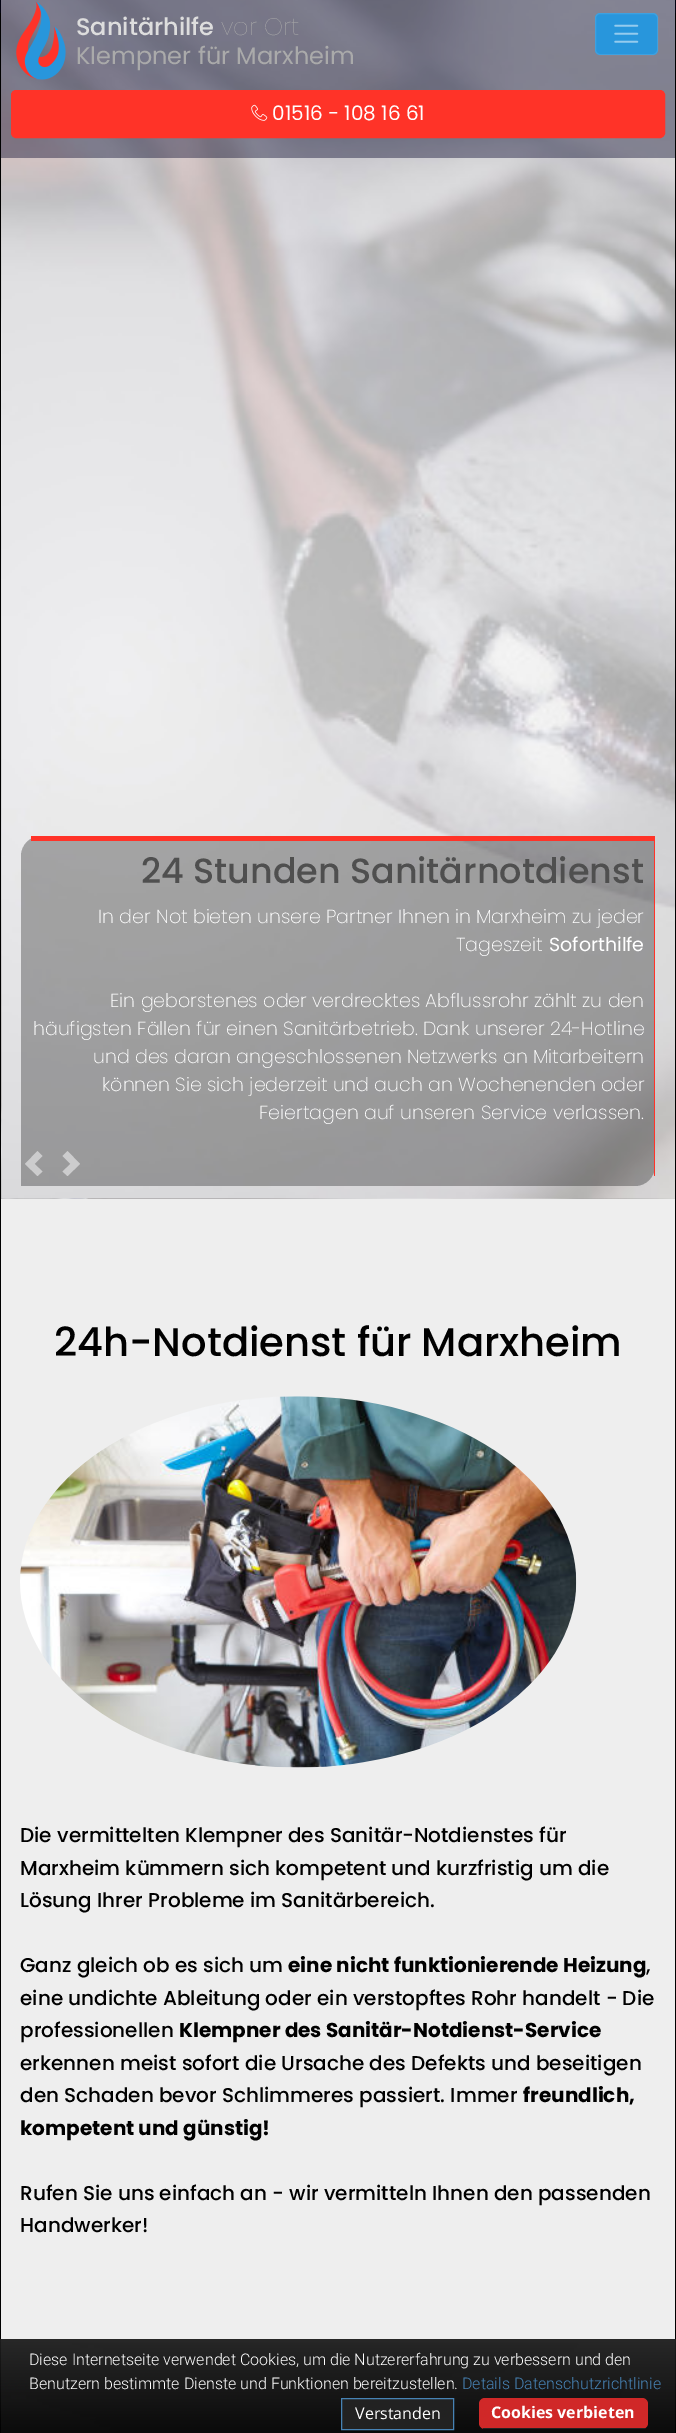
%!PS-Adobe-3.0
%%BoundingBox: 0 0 676 2433
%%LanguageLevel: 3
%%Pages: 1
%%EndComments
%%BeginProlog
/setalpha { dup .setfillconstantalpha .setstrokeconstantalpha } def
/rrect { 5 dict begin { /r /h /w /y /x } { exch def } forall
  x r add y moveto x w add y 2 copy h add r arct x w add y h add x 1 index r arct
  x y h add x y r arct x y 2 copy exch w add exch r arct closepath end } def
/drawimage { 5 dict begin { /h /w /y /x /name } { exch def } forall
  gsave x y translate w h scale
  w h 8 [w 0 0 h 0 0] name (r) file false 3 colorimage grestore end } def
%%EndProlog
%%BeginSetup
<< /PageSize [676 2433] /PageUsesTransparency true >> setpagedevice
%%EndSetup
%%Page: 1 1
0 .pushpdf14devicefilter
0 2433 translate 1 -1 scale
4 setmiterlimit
1 setgray
0 0 676 2433 rectfill
(images/1.raw) 1 0 674 2433 drawimage
(images/5.raw) 1 0 674 1199 drawimage
0 setgray
675 0 1 2433 rectfill
0 0 1 2433 rectfill
0.4 setalpha
0.008 0.008 0.149 setrgbcolor
0 0 676 158 rectfill
1 setalpha
0 setgray
675 13 1 145 rectfill
0 13 1 145 rectfill
(images/2.raw) 16 1 50 79 drawimage
1 0.2 0.157 setrgbcolor
11.5 90.5 653 47 4.5 rrect gsave fill grestore
stroke
(images/3.raw) 251 104 17 17 drawimage
0.157 0.588 0.863 setrgbcolor
595 13 63 42 5 rrect fill
0.1 setalpha
1 setgray
595.5 13.5 62 41 4.5 rrect stroke
1 setalpha
(images/4.raw) 614 24 25 19 drawimage
0.3 setalpha
0 setgray
newpath 41 836 moveto 655 836 lineto 655 1166 lineto 655 1177 646 1186 635 1186 curveto 21 1186 lineto 21 856 lineto 21 845 30 836 41 836 curveto closepath fill
1 setalpha
1 0.2 0.157 setrgbcolor
31 836 624 5 rectfill
654 836 1 340 rectfill
0.8 0.8 0.804 setrgbcolor
newpath 37.5 1151 moveto 25 1164 lineto 37.5 1176 lineto 42.5 1171.5 lineto 34.5 1164 lineto 42.5 1156 lineto closepath 67.5 1151 moveto 62.5 1156 lineto 70.5 1164 lineto 62.5 1171.5 lineto 67.5 1176 lineto 80 1164 lineto closepath fill
0.933 setgray
1 1199 674 1144 rectfill
(images/6.raw) 20 1396 557 372 drawimage
0.7 setalpha
1 setgray
1 2343 674 90 rectfill
0.95 setalpha
gsave newpath 0 2339 moveto 676 2339 lineto 676 2433 lineto 0 2433 lineto closepath clip newpath
<< /ShadingType 2 /ColorSpace /DeviceRGB /Coords [338 2339 338 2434] /Extend [true true] /Function << /FunctionType 2 /Domain [0 1] /C0 [0.118 0.118 0.118] /C1 [0 0 0] /N 1 >> >> shfill grestore
1 setalpha
0.133 setgray
newpath 341.5 2398.5 moveto 453.5 2398.5 lineto 453.5 2429.5 lineto 341.5 2429.5 lineto closepath gsave fill grestore
0.275 0.51 0.706 setrgbcolor
stroke
0.816 0.157 0.157 setrgbcolor
479 2398 169 31 6 rrect fill
0.133 setgray
483 2428 162 1 rectfill
/Poppins-Medium [24 0 0 -24 0 0] selectfont
0.867 setgray
76 35 moveto (Sanitärhilfe) show
/Poppins-Thin [24 0 0 -24 0 0] selectfont
0.667 setgray
221 35 moveto (vor Ort) show
/Poppins-Regular [24 0 0 -24 0 0] selectfont
76 64 moveto (Klempner für Marxheim) show
/Poppins-Regular [20 0 0 -20 0 0] selectfont
1 setgray
272 120 moveto (01516 - 108 16 61) show
/Poppins-Medium [35 0 0 -35 0 0] selectfont
0.31 setgray
141 883 moveto (24 Stunden Sanitärnotdienst) show
/Poppins-ExtraLight [19 0 0 -19 0 0] selectfont
1 setgray
98 923 moveto (In der Not bieten unsere Partner Ihnen in Marxheim zu jeder) show
456 951 moveto (Tageszeit) show
/Poppins-Regular [19 0 0 -19 0 0] selectfont
549 951 moveto (Soforthilfe) show
/Poppins-ExtraLight [19 0 0 -19 0 0] selectfont
110 1007 moveto (Ein geborstenes oder verdrecktes Abflussrohr zählt zu den) show
33 1035 moveto (häufigsten Fällen für einen Sanitärbetrieb. Dank unserer 24-Hotline) show
93 1063 moveto (und des daran angeschlossenen Netzwerks an Mitarbeitern) show
102 1091 moveto (können Sie sich jederzeit und auch an Wochenenden oder) show
259 1119 moveto (Feiertagen auf unseren Service verlassen.) show
/Poppins-Medium [40 0 0 -40 0 0] selectfont
0 setgray
54 1356 moveto (24h-Notdienst für Marxheim) show
/Poppins-Medium [20 0 0 -20 0 0] selectfont
20 1842 moveto (Die vermittelten Klempner des Sanitär-Notdienstes für) show
20 1875 moveto (Marxheim kümmern sich kompetent und kurzfristig um die) show
20 1907 moveto (Lösung Ihrer Probleme im Sanitärbereich.) show
20 1972 moveto (Ganz gleich ob es sich um) show
/Poppins-Bold [20 0 0 -20 0 0] selectfont
288 1972 moveto (eine nicht funktionierende Heizung) show
/Poppins-Medium [20 0 0 -20 0 0] selectfont
646 1972 moveto (,) show
20 2005 moveto (eine undichte Ableitung oder ein verstopftes Rohr handelt - Die) show
20 2037 moveto (professionellen) show
/Poppins-Bold [20 0 0 -20 0 0] selectfont
179 2037 moveto (Klempner des Sanitär-Notdienst-Service) show
/Poppins-Medium [20 0 0 -20 0 0] selectfont
20 2070 moveto (erkennen meist sofort die Ursache des Defekts und beseitigen) show
20 2102 moveto (den Schaden bevor Schlimmeres passiert. Immer) show
/Poppins-Bold [20 0 0 -20 0 0] selectfont
523 2102 moveto (freundlich,) show
20 2135 moveto (kompetent und günstig!) show
/Poppins-Medium [20 0 0 -20 0 0] selectfont
20 2200 moveto (Rufen Sie uns einfach an - wir vermitteln Ihnen den passenden) show
20 2232 moveto (Handwerker!) show
/Roboto-Light [16 0 0 -16 0 0] selectfont
1 setgray
29 2365 moveto (Diese Internetseite verwendet Cookies, um die Nutzererfahrung zu verbessern und den) show
29 2389 moveto (Benutzern bestimmte Dienste und Funktionen bereitzustellen.) show
0.275 0.51 0.706 setrgbcolor
462 2389 moveto (Details Datenschutzrichtlinie) show
/OpenSans-Regular [16 0 0 -16 0 0] selectfont
1 setgray
355 2419 moveto (Verstanden) show
/OpenSans-Bold [16 0 0 -16 0 0] selectfont
491 2418 moveto (Cookies verbieten) show
.poppdf14devicefilter showpage
%%EOF
